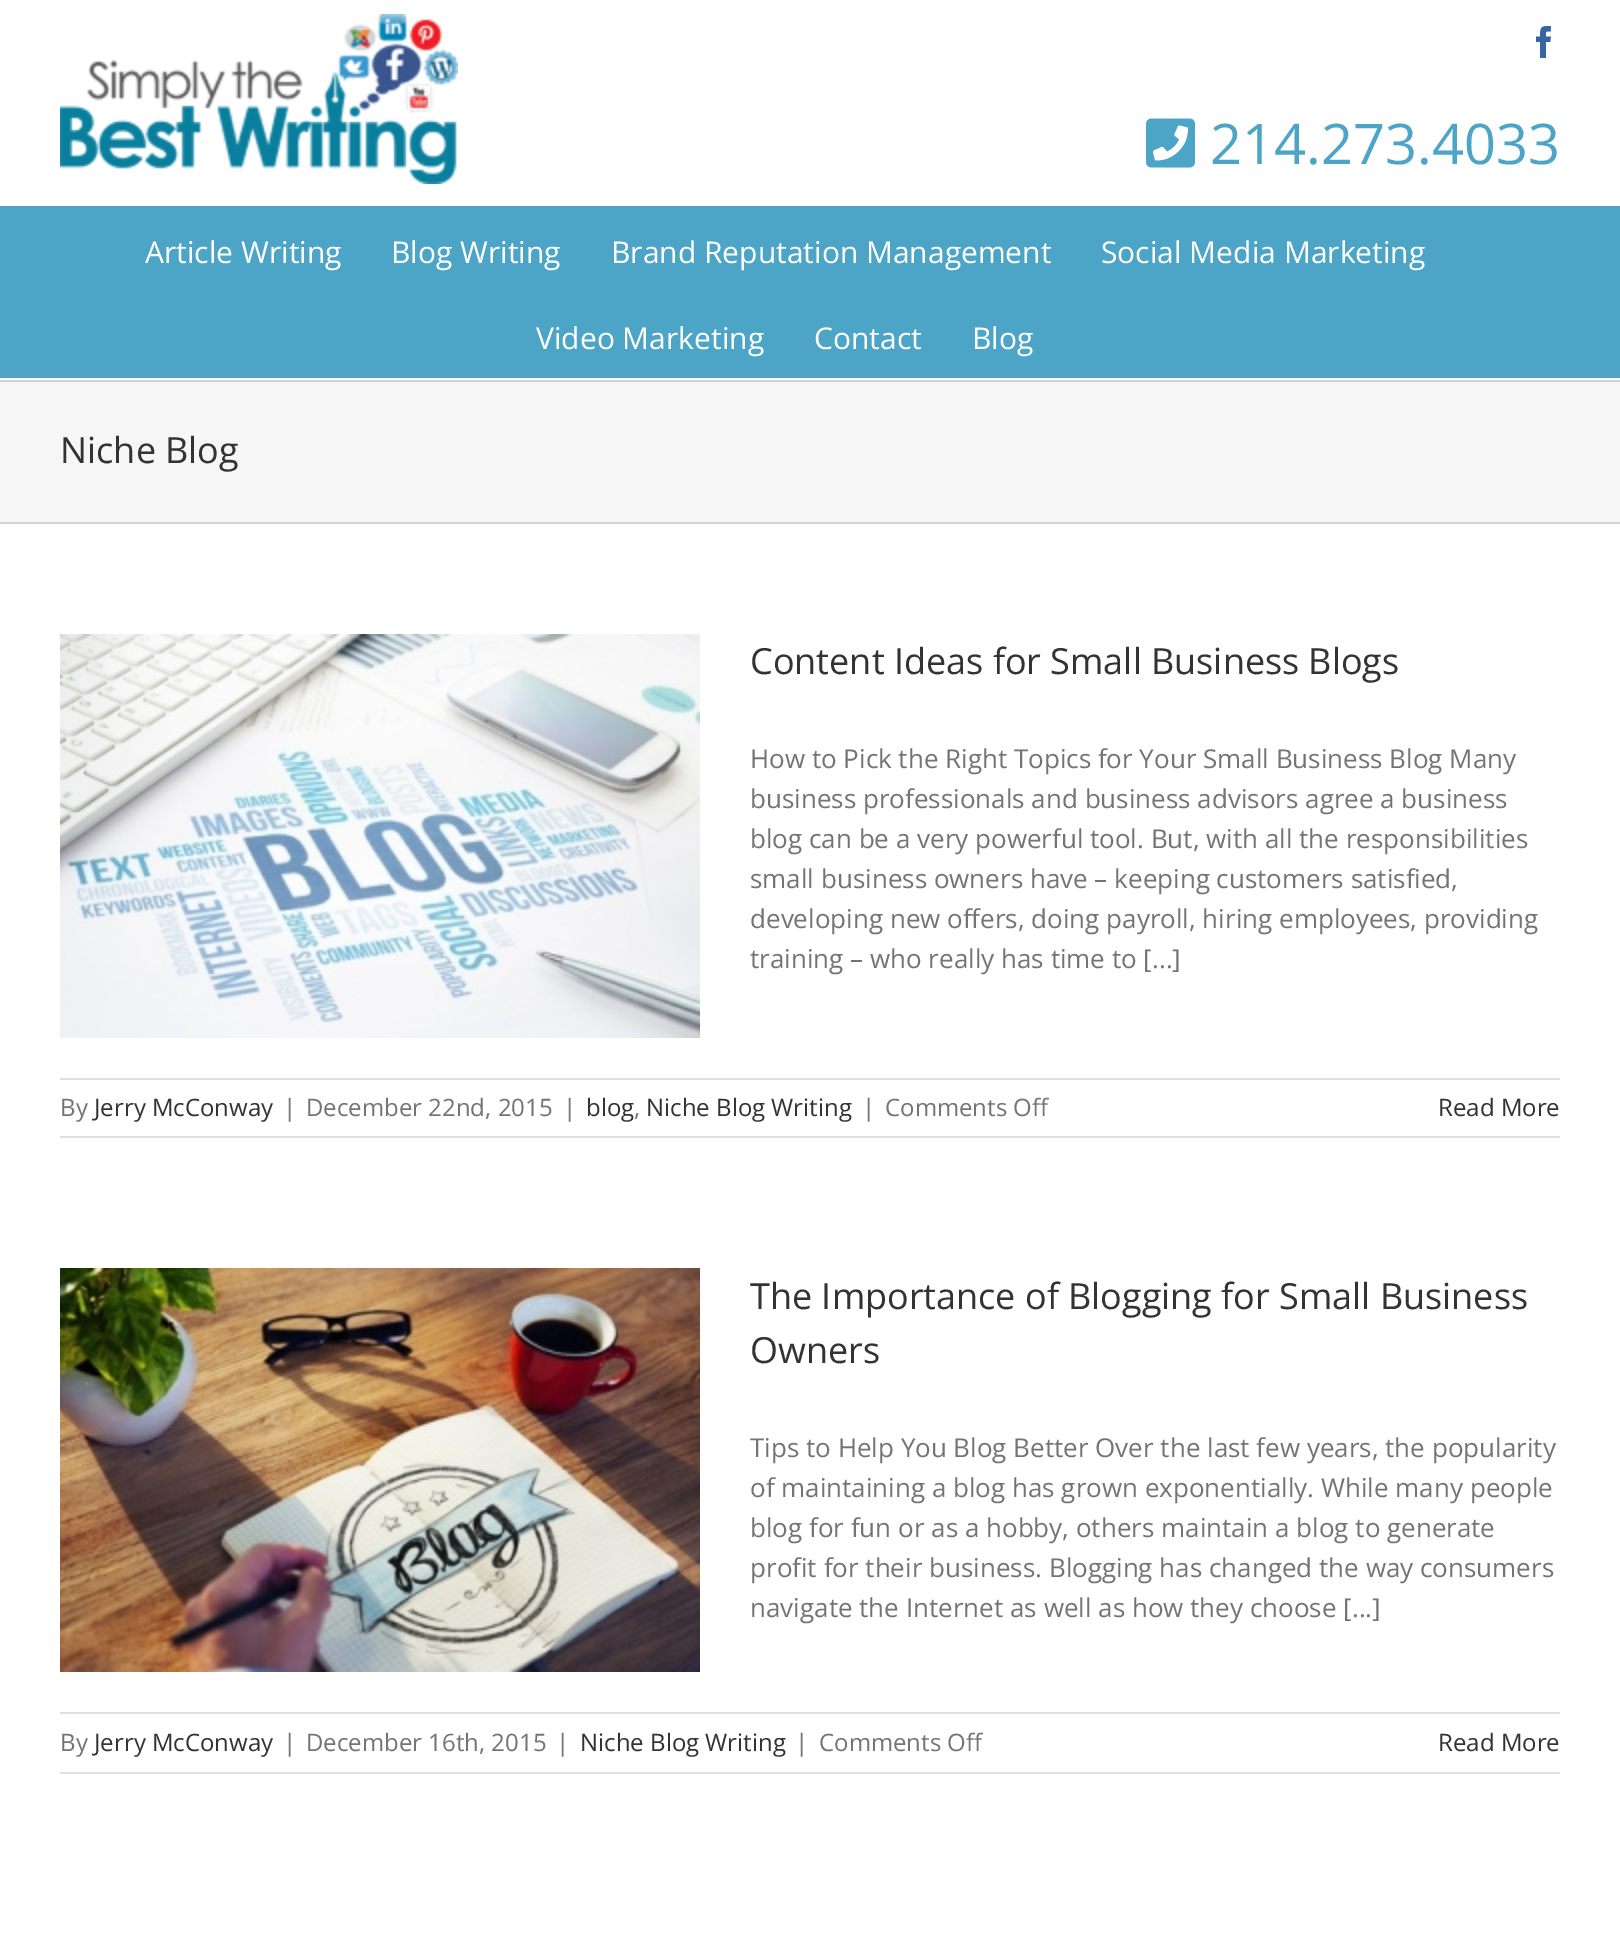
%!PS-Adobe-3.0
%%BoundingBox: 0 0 1620 1952
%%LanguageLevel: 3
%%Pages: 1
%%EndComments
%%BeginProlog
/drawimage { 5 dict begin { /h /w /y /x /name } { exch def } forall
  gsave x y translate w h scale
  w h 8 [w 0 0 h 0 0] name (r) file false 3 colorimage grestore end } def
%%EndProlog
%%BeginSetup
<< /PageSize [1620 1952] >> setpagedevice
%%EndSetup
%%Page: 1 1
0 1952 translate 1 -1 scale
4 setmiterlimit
1 setgray
0 0 1620 1952 rectfill
(images/1.raw) 1536 26 15 32 drawimage
(images/2.raw) 60 14 398 170 drawimage
(images/3.raw) 1146 118 49 50 drawimage
0.298 0.647 0.78 setrgbcolor
0 206 1620 172 rectfill
0.965 setgray
0 382 1620 140 rectfill
0.824 0.827 0.831 setrgbcolor
0 380 1620 2 rectfill
0 522 1620 2 rectfill
(images/4.raw) 60 634 640 404 drawimage
0.878 0.871 0.871 setrgbcolor
60 1078 1500 2 rectfill
60 1136 1500 2 rectfill
(images/5.raw) 60 1268 640 404 drawimage
60 1712 1500 2 rectfill
60 1772 1500 2 rectfill
/OpenSans-Regular [56 0 0 -56 0 0] selectfont
0.298 0.647 0.78 setrgbcolor
1210 164 moveto (214.273.4033) show
/OpenSans-Regular [30 0 0 -30 0 0] selectfont
1 setgray
145 263 moveto (Article Writing) show
391 263 moveto (Blog Writing) show
611 263 moveto (Brand Reputation Management) show
1101 263 moveto (Social Media Marketing) show
536 349 moveto (Video Marketing) show
814 349 moveto (Contact) show
972 349 moveto (Blog) show
/OpenSans-Regular [36 0 0 -36 0 0] selectfont
0.2 setgray
60 463 moveto (Niche Blog) show
750 674 moveto (Content Ideas for Small Business Blogs) show
/OpenSans-Regular [26 0 0 -26 0 0] selectfont
0.455 setgray
750 768 moveto (How to Pick the Right Topics for Your Small Business Blog Many) show
750 808 moveto (business professionals and business advisors agree a business) show
750 848 moveto (blog can be a very powerful tool. But, with all the responsibilities) show
750 888 moveto (small business owners have – keeping customers satisfied,) show
750 928 moveto (developing new offers, doing payroll, hiring employees, providing) show
750 968 moveto (training – who really has time to [...]) show
/OpenSans-Regular [24 0 0 -24 0 0] selectfont
60 1116 moveto (By) show
0.2 setgray
94 1116 moveto (Jerry McConway) show
0.455 setgray
283 1116 moveto (|) show
306 1116 moveto (December 22nd, 2015) show
563 1116 moveto (|) show
0.2 setgray
586 1116 moveto (blog) show
0.455 setgray
634 1116 moveto (,) show
0.2 setgray
646 1116 moveto (Niche Blog Writing) show
0.455 setgray
862 1116 moveto (|) show
885 1116 moveto (Comments Off) show
0.2 setgray
1438 1116 moveto (Read More) show
/OpenSans-Regular [36 0 0 -36 0 0] selectfont
750 1309 moveto (The Importance of Blogging for Small Business) show
750 1363 moveto (Owners) show
/OpenSans-Regular [26 0 0 -26 0 0] selectfont
0.455 setgray
750 1457 moveto (Tips to Help You Blog Better Over the last few years, the popularity) show
750 1497 moveto (of maintaining a blog has grown exponentially. While many people) show
750 1537 moveto (blog for fun or as a hobby, others maintain a blog to generate) show
750 1577 moveto (profit for their business. Blogging has changed the way consumers) show
750 1617 moveto (navigate the Internet as well as how they choose [...]) show
/OpenSans-Regular [24 0 0 -24 0 0] selectfont
60 1751 moveto (By) show
0.2 setgray
94 1751 moveto (Jerry McConway) show
0.455 setgray
283 1751 moveto (|) show
306 1751 moveto (December 16th, 2015) show
556 1751 moveto (|) show
0.2 setgray
580 1751 moveto (Niche Blog Writing) show
0.455 setgray
795 1751 moveto (|) show
819 1751 moveto (Comments Off) show
0.2 setgray
1438 1751 moveto (Read More) show
showpage
%%EOF
